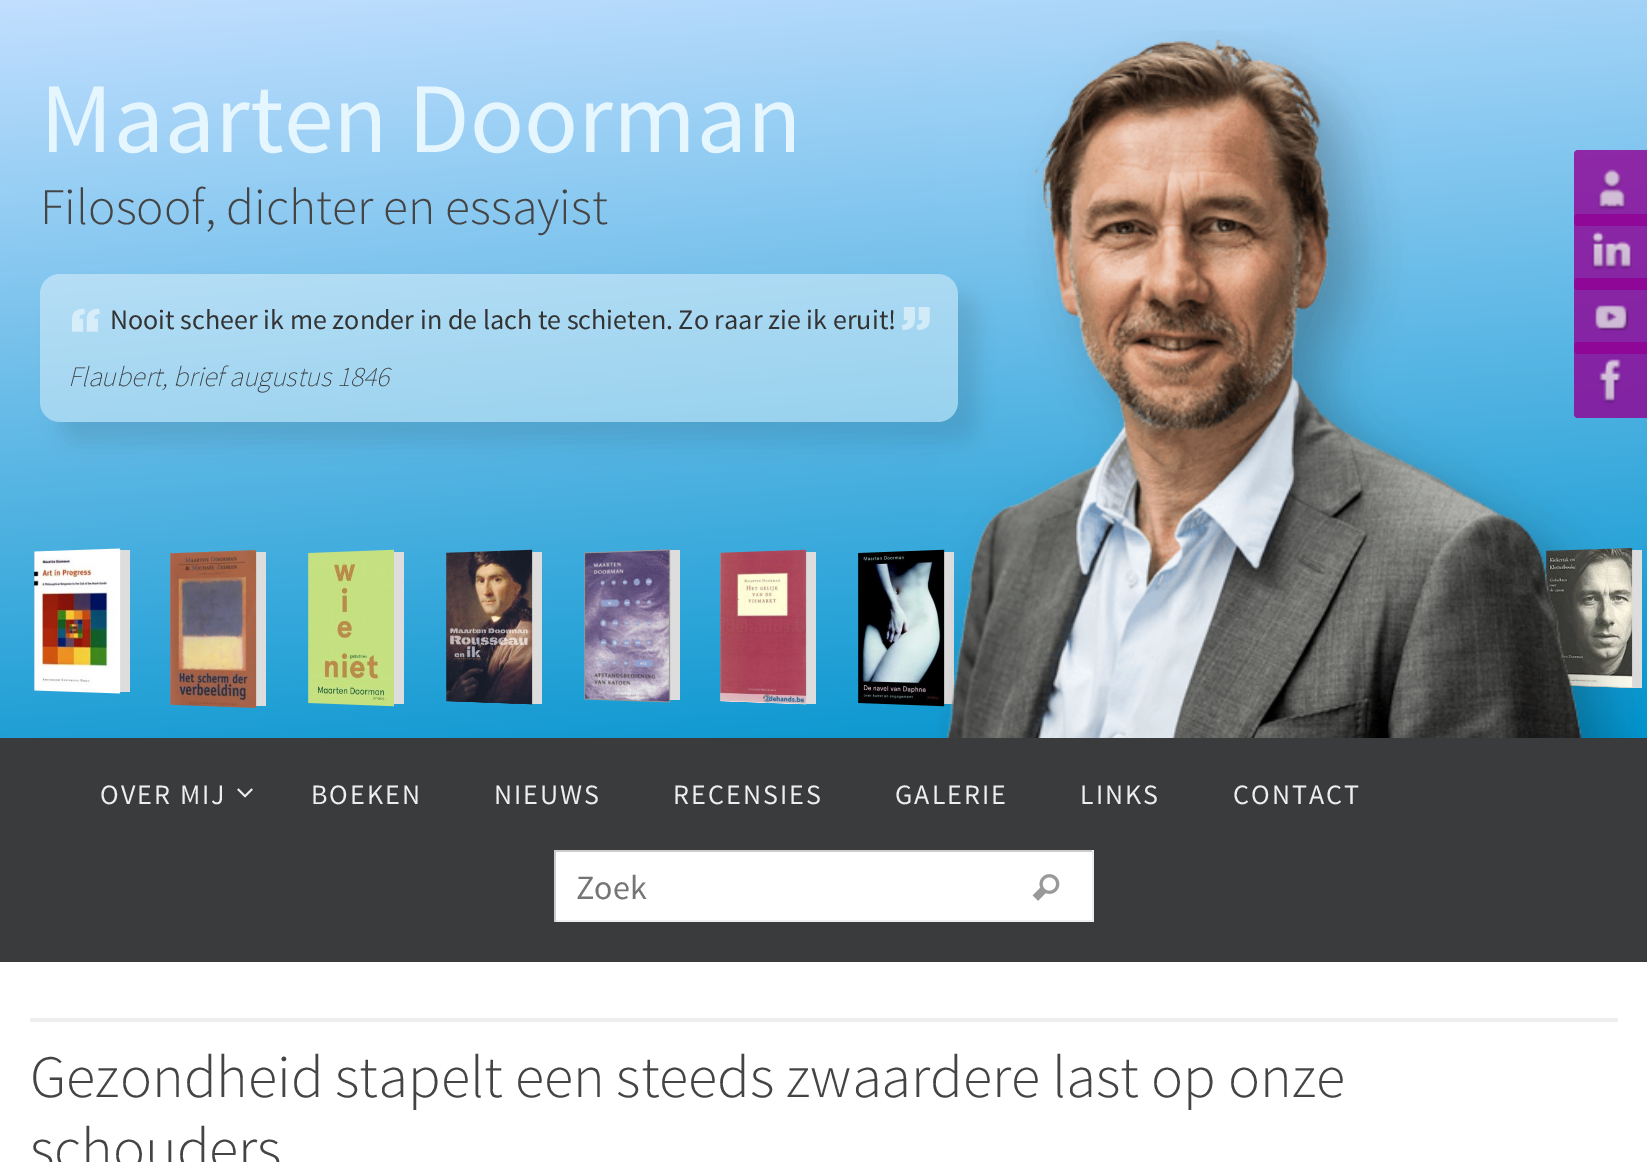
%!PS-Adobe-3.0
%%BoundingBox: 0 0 1647 1162
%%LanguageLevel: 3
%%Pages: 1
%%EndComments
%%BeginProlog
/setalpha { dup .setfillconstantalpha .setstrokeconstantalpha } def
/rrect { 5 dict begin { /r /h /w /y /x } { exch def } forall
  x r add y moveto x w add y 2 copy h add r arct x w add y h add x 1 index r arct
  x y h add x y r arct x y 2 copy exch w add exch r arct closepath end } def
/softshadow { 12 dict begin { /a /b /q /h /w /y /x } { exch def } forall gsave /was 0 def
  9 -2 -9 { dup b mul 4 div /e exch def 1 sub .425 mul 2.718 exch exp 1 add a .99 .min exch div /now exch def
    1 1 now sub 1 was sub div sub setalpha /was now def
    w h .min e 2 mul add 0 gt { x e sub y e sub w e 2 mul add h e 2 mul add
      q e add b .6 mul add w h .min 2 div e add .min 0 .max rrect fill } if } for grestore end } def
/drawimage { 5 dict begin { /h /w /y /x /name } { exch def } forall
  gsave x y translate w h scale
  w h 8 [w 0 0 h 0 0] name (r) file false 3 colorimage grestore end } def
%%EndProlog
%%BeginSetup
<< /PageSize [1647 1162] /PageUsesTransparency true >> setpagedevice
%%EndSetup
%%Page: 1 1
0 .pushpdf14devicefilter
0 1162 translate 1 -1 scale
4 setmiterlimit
1 setgray
0 0 1647 1162 rectfill
gsave newpath 0 0 moveto 1647 0 lineto 1647 738 lineto 0 738 lineto closepath clip newpath
<< /ShadingType 2 /ColorSpace /DeviceRGB /Coords [786 -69 862 807] /Extend [true true] /Function << /FunctionType 2 /Domain [0 1] /C0 [0.761 0.875 1] /C1 [0 0.576 0.804] /N 1 >> >> shfill grestore
gsave
newpath 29 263 moveto 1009 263 lineto 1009 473 lineto 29 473 lineto closepath 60 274 moveto 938 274 lineto 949 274 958 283 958 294 curveto 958 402 lineto 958 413 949 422 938 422 curveto 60 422 lineto 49 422 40 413 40 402 curveto 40 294 lineto 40 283 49 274 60 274 curveto closepath eoclip newpath
0 setgray
60 294 918 148 20 10 0.1 softshadow
grestore
0.4 setalpha
40 274 918 148 20 rrect fill
1 setalpha
(images/1.raw) 72 308 28 24 drawimage
(images/2.raw) 901 307 29 23 drawimage
0.867 setgray
944 552 10 152 rectfill
(images/10.raw) 858 549 87 158 drawimage
1632 550 10 138 rectfill
(images/11.raw) 1546 548 87 140 drawimage
(images/3.raw) 938 30 704 708 drawimage
120 550 10 142 rectfill
(images/4.raw) 34 548 87 146 drawimage
256 552 10 154 rectfill
(images/5.raw) 170 550 87 158 drawimage
394 552 10 152 rectfill
(images/6.raw) 308 549 86 158 drawimage
532 552 10 152 rectfill
(images/7.raw) 446 549 87 156 drawimage
670 550 10 150 rectfill
(images/8.raw) 584 549 87 154 drawimage
806 552 10 152 rectfill
(images/9.raw) 720 549 87 156 drawimage
0.227 0.231 0.239 setrgbcolor
0 738 1647 224 rectfill
(images/12.raw) 237 788 16 10 drawimage
1 setgray
556 852 536 68 rectfill
0.8 setgray
554 850 540 2 rectfill
0.933 setgray
1092 850 2 72 rectfill
554 920 540 2 rectfill
0.8 setgray
554 850 2 72 rectfill
(images/13.raw) 1032 874 28 27 drawimage
0.8 setalpha
0.565 0 0.58 setrgbcolor
1574 150 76 76 4 rrect fill
1 setalpha
(images/14.raw) 1598 169 28 41 drawimage
0.8 setalpha
1574 214 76 76 4 rrect fill
1 setalpha
(images/15.raw) 1591 231 41 39 drawimage
0.8 setalpha
1574 278 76 76 4 rrect fill
1 setalpha
(images/16.raw) 1595 305 34 26 drawimage
0.8 setalpha
1574 342 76 76 4 rrect fill
1 setalpha
(images/17.raw) 1598 359 23 45 drawimage
0.933 setgray
30 1018 1588 4 rectfill
/SourceSansPro-Regular [100 0 0 -100 0 0] selectfont
0.898 0.965 1 setrgbcolor
40 152 moveto (Maarten Doorman) show
/SourceSansPro-Light [51.25 0 0 -51.25 0 0] selectfont
0.267 setgray
40 224 moveto (Filosoof, dichter en essayist) show
/SourceSansPro-Regular [28 0 0 -28 0 0] selectfont
0.2 setgray
110 329 moveto (Nooit scheer ik me zonder in de lach te schieten. Zo raar zie ik eruit!) show
/SourceSansPro-ExtraLightItalic [28 0 0 -28 0 0] selectfont
68 386 moveto (Flaubert, brief augustus 1846) show
/SourceSansPro-Regular [28 0 0 -28 0 0] selectfont
0.933 setgray
100 804 moveto 2 0 (OVER MIJ) ashow
311 804 moveto 2 0 (BOEKEN) ashow
494 804 moveto 2 0 (NIEUWS) ashow
673 804 moveto 2 0 (RECENSIES) ashow
895 804 moveto 2 0 (GALERIE) ashow
1080 804 moveto 2 0 (LINKS) ashow
1233 804 moveto 2 0 (CONTACT) ashow
/SourceSansPro-Regular [34 0 0 -34 0 0] selectfont
0.459 setgray
576 899 moveto (Zoek) show
/SourceSansPro-Light [60 0 0 -60 0 0] selectfont
0.267 setgray
30 1097 moveto (Gezondheid stapelt een steeds zwaardere last op onze) show
30 1169 moveto (schouders) show
.poppdf14devicefilter showpage
%%EOF
